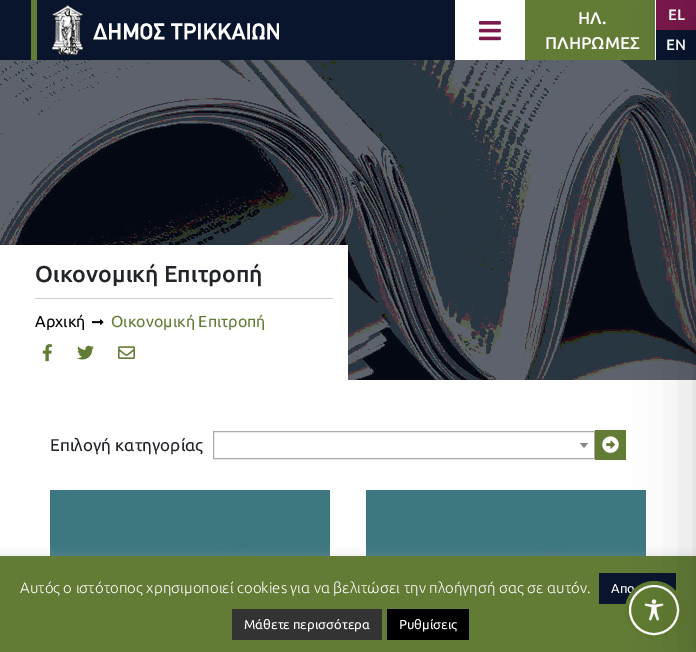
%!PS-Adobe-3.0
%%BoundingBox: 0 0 696 652
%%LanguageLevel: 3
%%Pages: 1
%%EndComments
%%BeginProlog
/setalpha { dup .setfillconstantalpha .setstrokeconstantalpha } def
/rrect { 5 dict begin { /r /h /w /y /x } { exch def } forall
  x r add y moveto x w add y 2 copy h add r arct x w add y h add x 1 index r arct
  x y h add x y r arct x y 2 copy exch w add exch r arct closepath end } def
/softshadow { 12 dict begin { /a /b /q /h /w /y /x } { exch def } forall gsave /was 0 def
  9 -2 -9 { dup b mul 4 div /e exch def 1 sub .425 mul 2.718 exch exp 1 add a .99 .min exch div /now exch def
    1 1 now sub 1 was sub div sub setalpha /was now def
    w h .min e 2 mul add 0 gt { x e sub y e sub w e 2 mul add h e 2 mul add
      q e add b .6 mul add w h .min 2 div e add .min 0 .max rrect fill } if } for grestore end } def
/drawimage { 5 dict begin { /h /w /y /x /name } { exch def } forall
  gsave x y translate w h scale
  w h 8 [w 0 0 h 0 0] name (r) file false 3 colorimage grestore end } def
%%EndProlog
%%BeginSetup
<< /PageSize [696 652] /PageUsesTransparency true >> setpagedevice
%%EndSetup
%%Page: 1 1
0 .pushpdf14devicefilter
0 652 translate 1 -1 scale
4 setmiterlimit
1 setgray
0 0 696 652 rectfill
0.031 0.082 0.176 setrgbcolor
0 0 696 60 rectfill
0.384 0.482 0.208 setrgbcolor
31 0 6 60 rectfill
(images/1.raw) 52 5 31 50 drawimage
(images/2.raw) 93 23 186 17 drawimage
1 setgray
455 0 70 60 rectfill
(images/3.raw) 479 21 22 20 drawimage
0.384 0.482 0.208 setrgbcolor
525 0 130 60 rectfill
1 setgray
655 0 1 60 rectfill
0.478 0.09 0.298 setrgbcolor
656 0 40 30 rectfill
(images/4.raw) 0 60 696 320 drawimage
1 setgray
0 245 348 135 rectfill
0.8 setgray
35 298 298 1 rectfill
(images/5.raw) 92 319 12 6 drawimage
(images/6.raw) 42 344 10 18 drawimage
(images/7.raw) 77 345 17 15 drawimage
(images/8.raw) 118 346 17 13 drawimage
0.667 setgray
213.5 431.5 381 27 rectstroke
0.533 setgray
newpath 580 443 moveto 588 443 lineto 584 448 lineto closepath fill
0.384 0.482 0.208 setrgbcolor
595 430 31 30 rectfill
(images/9.raw) 602 436 17 17 drawimage
(images/10.raw) 50 490 280 66 drawimage
(images/10.raw) 366 490 280 66 drawimage
0.675 0.671 0.671 setrgbcolor
0 555 696 96 0 5 0.3 softshadow
0.384 0.482 0.208 setrgbcolor
0 556 696 96 rectfill
0.031 0.082 0.176 setrgbcolor
599 573 77 31 rectfill
0.2 setgray
232 609 150 31 rectfill
0 setgray
387 609 82 31 rectfill
/Ubuntu-Medium [17 0 0 -17 0 0] selectfont
1 setgray
578 24 moveto (ΗΛ.) show
545 49 moveto (ΠΛΗΡΩΜΕΣ) show
/Ubuntu-Medium [15 0 0 -15 0 0] selectfont
668 20 moveto (EL) show
666 50 moveto (EN) show
/Ubuntu-Medium [23 0 0 -23 0 0] selectfont
0.129 0.145 0.161 setrgbcolor
35 282 moveto (Οικονομική Επιτροπή) show
/Ubuntu-Regular [16 0 0 -16 0 0] selectfont
0 setgray
35 327 moveto (Αρχική) show
0.384 0.482 0.208 setrgbcolor
111 327 moveto (Οικονομική Επιτροπή) show
/Ubuntu-Regular [17 0 0 -17 0 0] selectfont
0.129 0.145 0.161 setrgbcolor
50 451 moveto (Επιλογή κατηγορίας) show
/Ubuntu-Light [15 0 0 -15 0 0] selectfont
1 setgray
20 593 moveto (Αυτός ο ιστότοπος χρησιμοποιεί cookies για να βελιτώσει την πλοήγησή σας σε αυτόν.) show
/Ubuntu-Regular [13 0 0 -13 0 0] selectfont
611 593 moveto (Απο) show
244 629 moveto (Μάθετε περισσότερα) show
399 629 moveto (Ρυθμίσεις) show
0.373 0.478 0.188 setrgbcolor
4 setlinewidth
newpath 654 610 27 0 360 arc closepath stroke
newpath 654 610 24 0 360 arc closepath gsave fill grestore
1 setgray
2 setlinewidth
stroke
(images/11.raw) 644 599 20 22 drawimage
0 setgray
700 10 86 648 0 30 0.2 softshadow
.poppdf14devicefilter showpage
%%EOF
